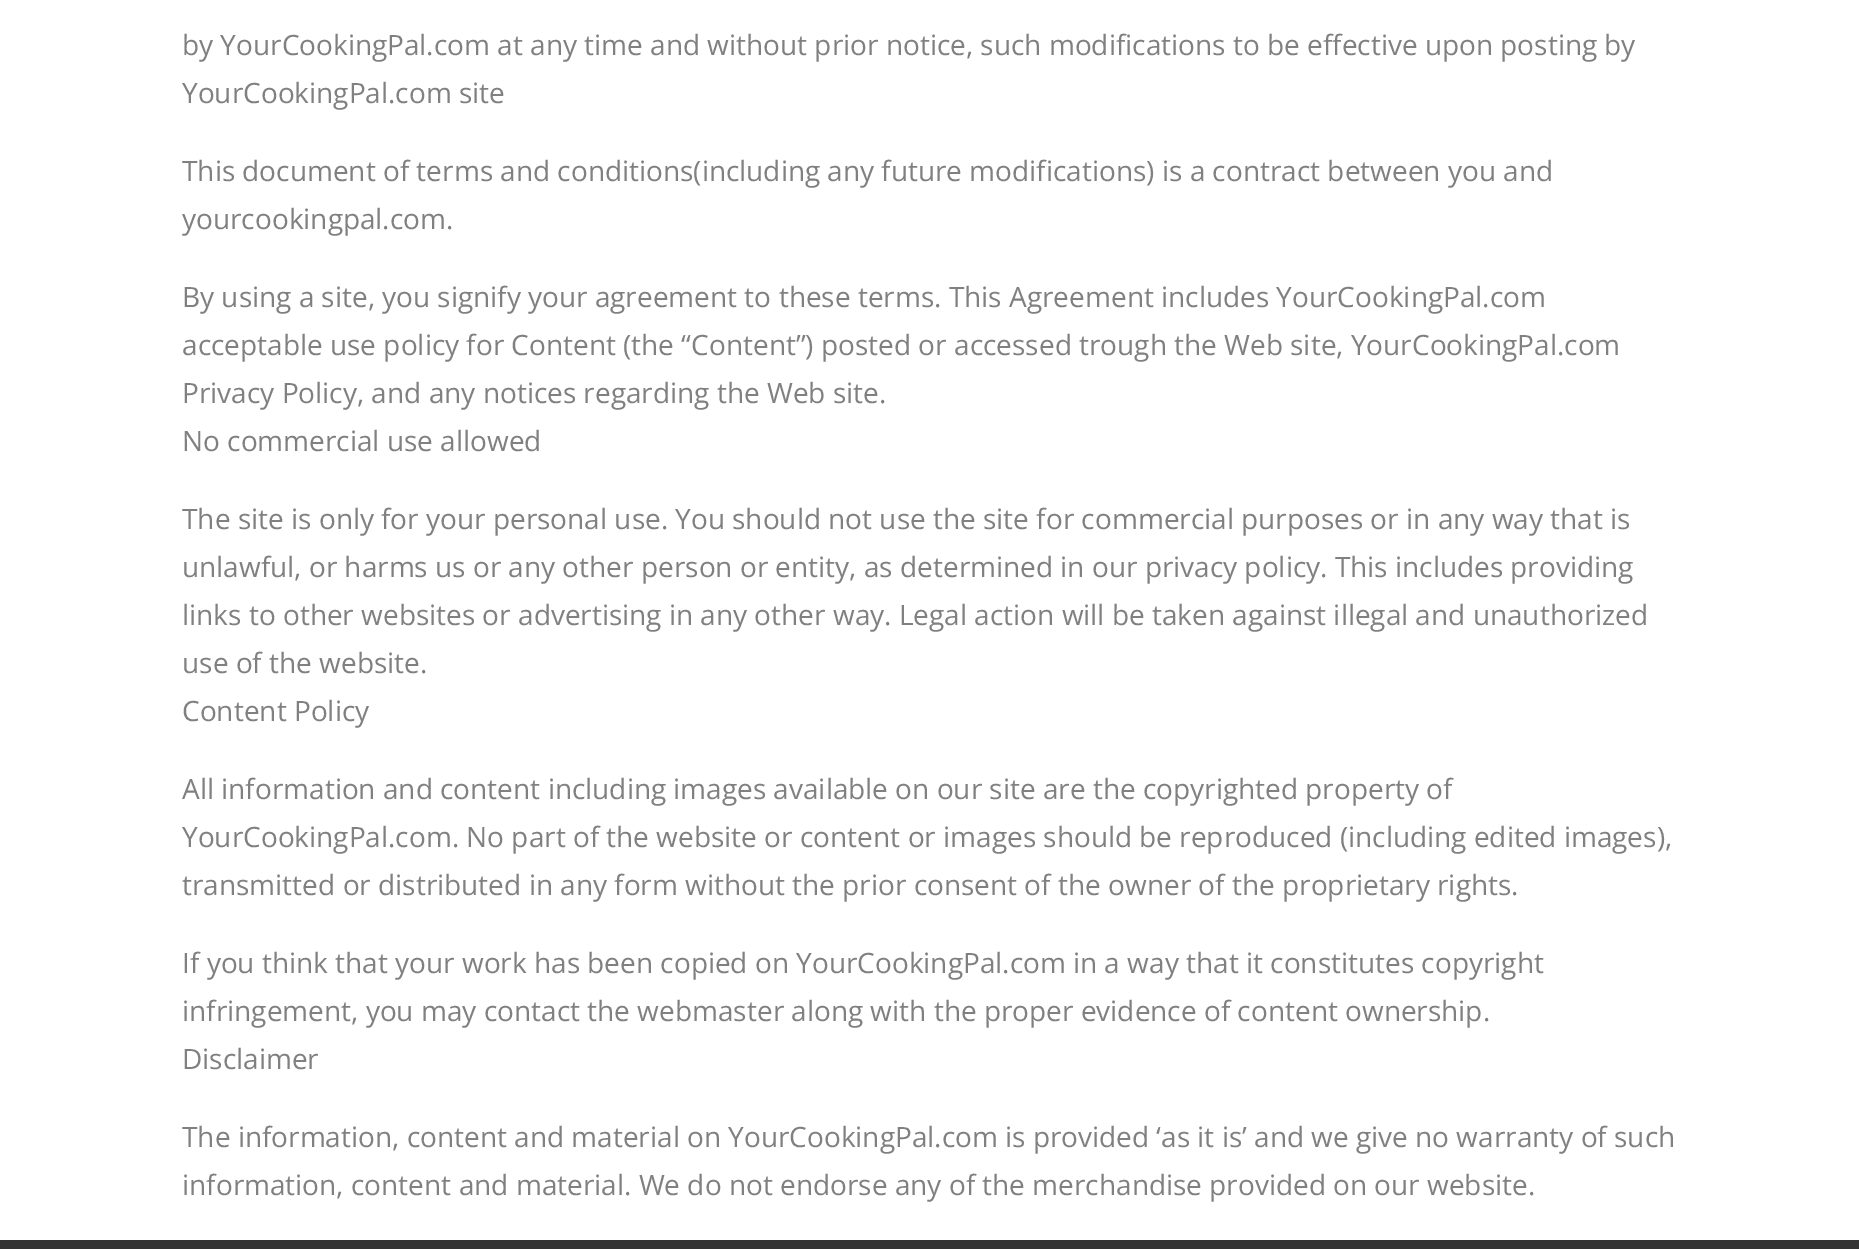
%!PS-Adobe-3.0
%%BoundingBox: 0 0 1859 1249
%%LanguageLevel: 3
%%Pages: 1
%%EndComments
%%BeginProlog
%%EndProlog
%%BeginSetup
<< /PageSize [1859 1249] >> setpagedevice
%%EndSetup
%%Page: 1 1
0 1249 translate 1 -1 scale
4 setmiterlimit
1 setgray
0 0 1859 1249 rectfill
0.2 setgray
0 1240 1859 9 rectfill
/OpenSans-Regular [28 0 0 -28 0 0] selectfont
0.502 setgray
182 55 moveto (by YourCookingPal.com at any time and without prior notice, such modifications to be effective upon posting by) show
182 103 moveto (YourCookingPal.com site) show
182 181 moveto (This document of terms and conditions\(including any future modifications\) is a contract between you and) show
182 229 moveto (yourcookingpal.com.) show
182 307 moveto (By using a site, you signify your agreement to these terms. This Agreement includes YourCookingPal.com) show
182 355 moveto (acceptable use policy for Content \(the “Content”\) posted or accessed trough the Web site, YourCookingPal.com) show
182 403 moveto (Privacy Policy, and any notices regarding the Web site.) show
182 451 moveto (No commercial use allowed) show
182 529 moveto (The site is only for your personal use. You should not use the site for commercial purposes or in any way that is) show
182 577 moveto (unlawful, or harms us or any other person or entity, as determined in our privacy policy. This includes providing) show
182 625 moveto (links to other websites or advertising in any other way. Legal action will be taken against illegal and unauthorized) show
182 673 moveto (use of the website.) show
182 721 moveto (Content Policy) show
182 799 moveto (All information and content including images available on our site are the copyrighted property of) show
182 847 moveto (YourCookingPal.com. No part of the website or content or images should be reproduced \(including edited images\),) show
182 895 moveto (transmitted or distributed in any form without the prior consent of the owner of the proprietary rights.) show
182 973 moveto (If you think that your work has been copied on YourCookingPal.com in a way that it constitutes copyright) show
182 1021 moveto (infringement, you may contact the webmaster along with the proper evidence of content ownership.) show
182 1069 moveto (Disclaimer) show
182 1147 moveto (The information, content and material on YourCookingPal.com is provided ‘as it is’ and we give no warranty of such) show
182 1195 moveto (information, content and material. We do not endorse any of the merchandise provided on our website.) show
showpage
%%EOF
